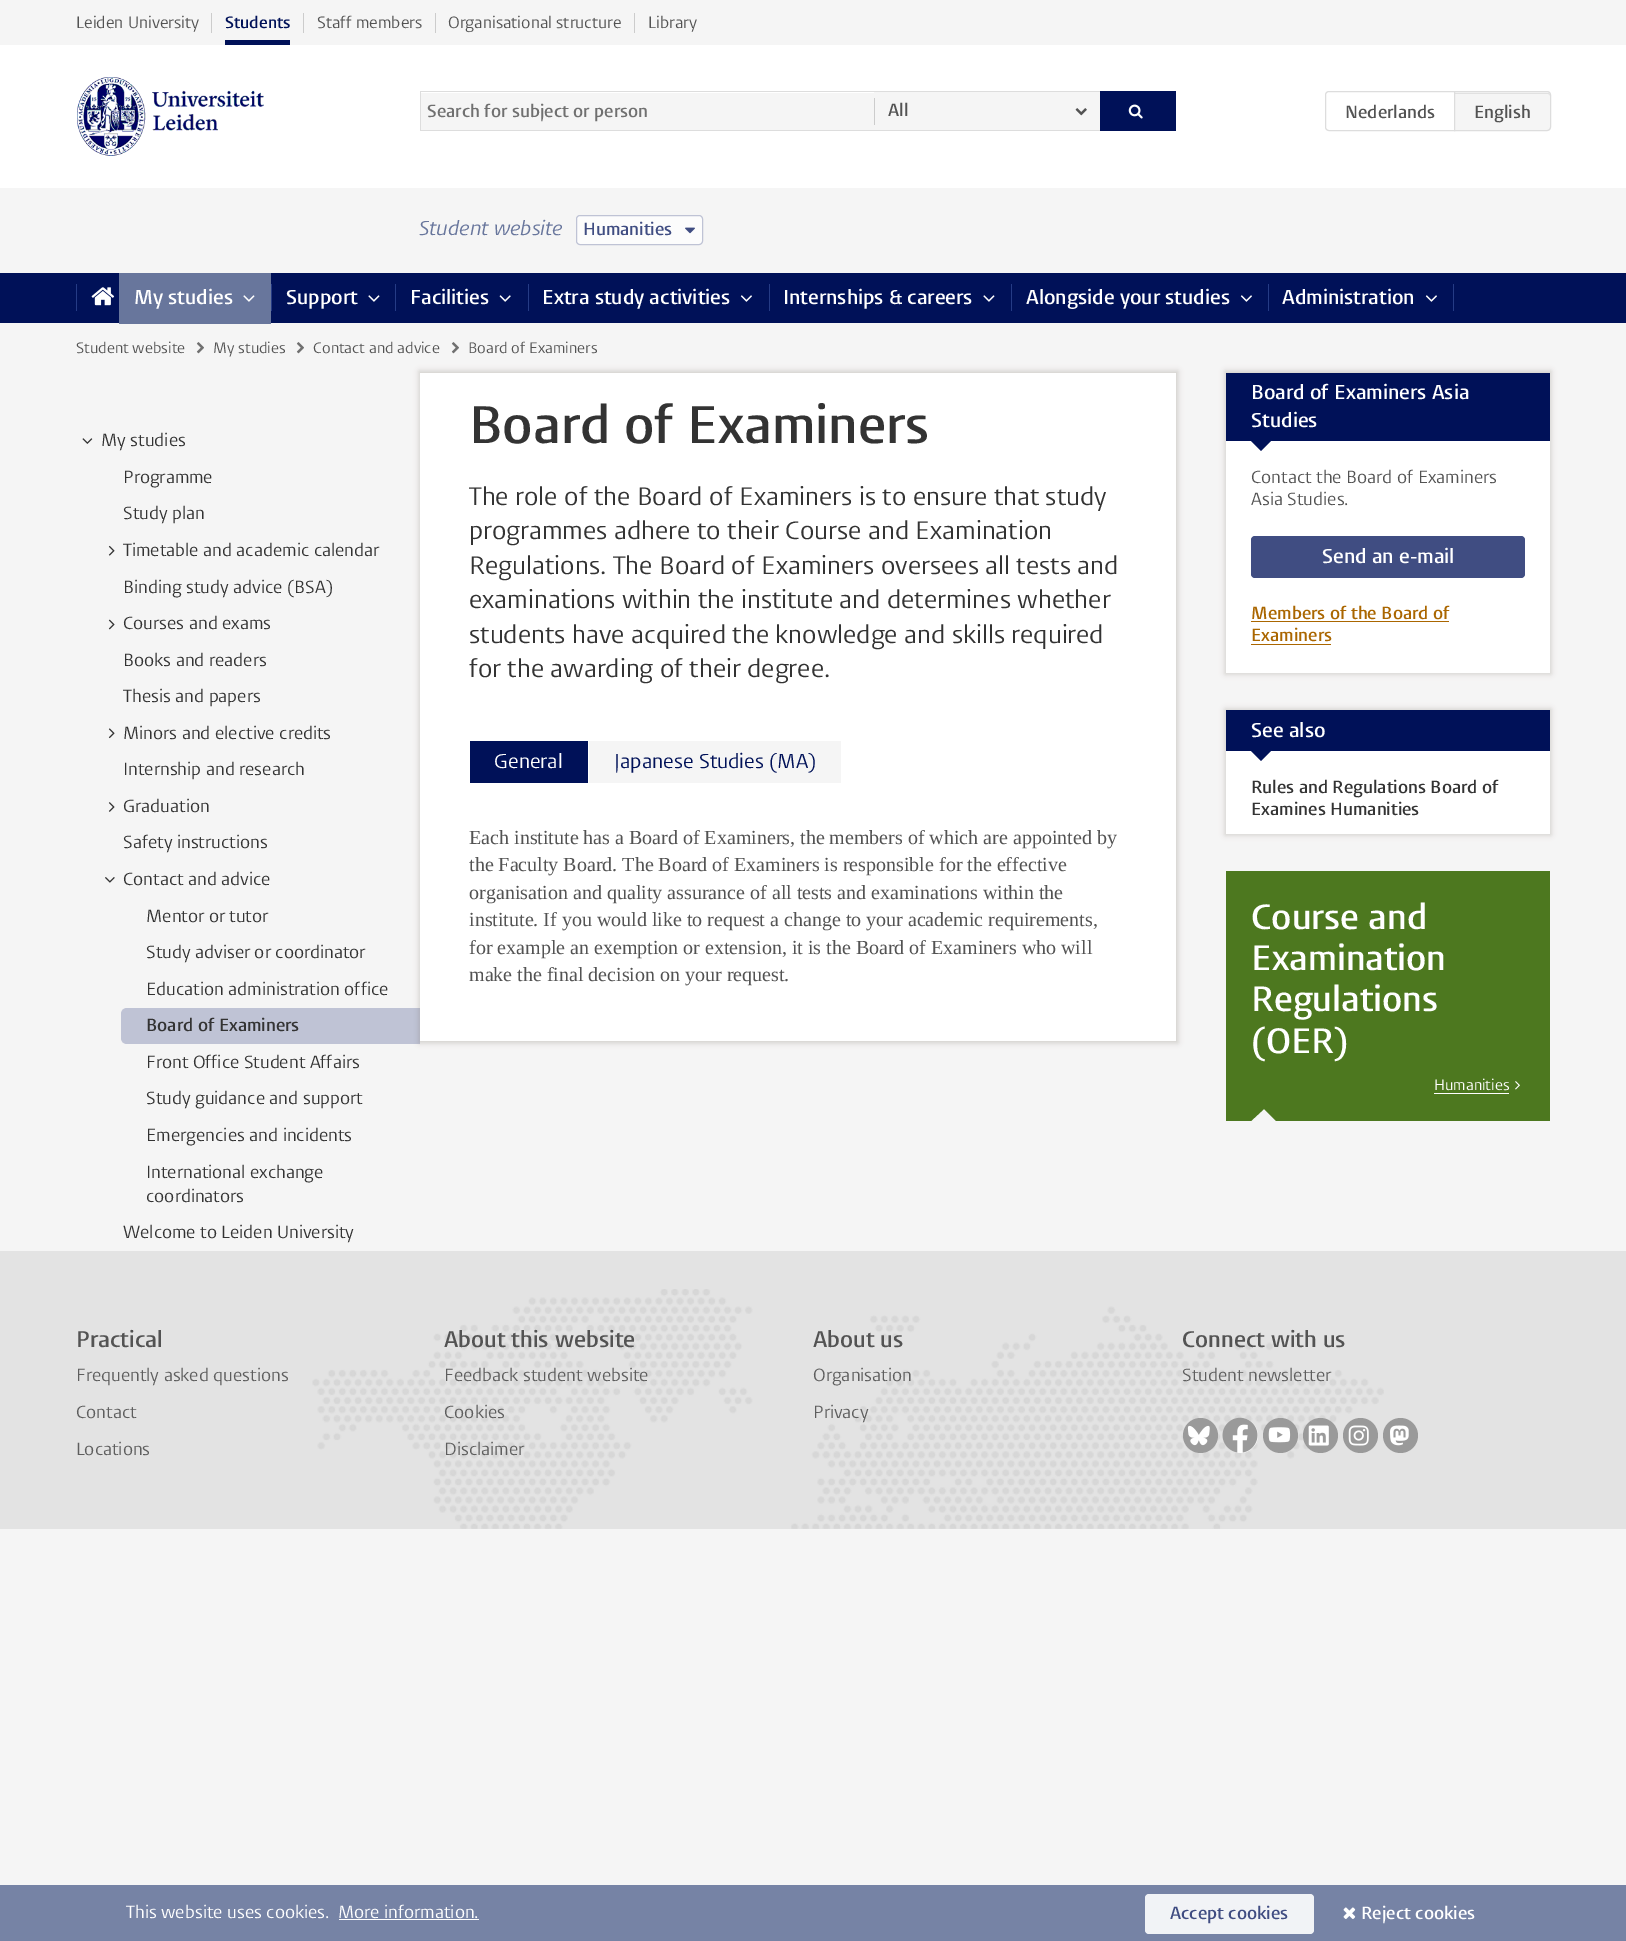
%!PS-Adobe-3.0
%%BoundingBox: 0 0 1626 1941
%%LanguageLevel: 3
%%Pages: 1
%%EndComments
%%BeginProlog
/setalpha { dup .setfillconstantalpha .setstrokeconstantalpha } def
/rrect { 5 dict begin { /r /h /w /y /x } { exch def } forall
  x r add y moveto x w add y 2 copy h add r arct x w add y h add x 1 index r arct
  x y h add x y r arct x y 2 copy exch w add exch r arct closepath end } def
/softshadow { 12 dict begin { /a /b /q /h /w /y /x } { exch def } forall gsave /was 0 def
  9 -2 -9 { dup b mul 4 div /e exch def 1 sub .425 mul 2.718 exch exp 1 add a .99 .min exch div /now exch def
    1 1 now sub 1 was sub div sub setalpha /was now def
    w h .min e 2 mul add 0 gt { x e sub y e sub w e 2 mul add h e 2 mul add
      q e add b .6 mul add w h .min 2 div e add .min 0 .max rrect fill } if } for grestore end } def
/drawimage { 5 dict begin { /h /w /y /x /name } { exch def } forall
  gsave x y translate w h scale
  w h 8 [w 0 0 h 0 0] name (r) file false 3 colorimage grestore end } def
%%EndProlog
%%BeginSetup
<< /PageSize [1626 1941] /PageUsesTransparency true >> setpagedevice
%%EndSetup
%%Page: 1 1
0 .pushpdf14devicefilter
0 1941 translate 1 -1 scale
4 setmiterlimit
0.961 setgray
0 0 1626 1941 rectfill
1 setgray
0 45 1626 143 rectfill
0.8 setgray
211 13 1 20 rectfill
303 13 1 20 rectfill
0 0.067 0.345 setrgbcolor
225 40 65 5 rectfill
0.8 setgray
435 13 1 20 rectfill
634 13 1 20 rectfill
(images/1.raw) 77 77 187 79 drawimage
0.961 setgray
421 93 453 37 rectfill
0.867 setgray
420 91 680 1 rectfill
420 130 680 1 rectfill
420 91 1 40 rectfill
0.961 setgray
874 92 226 38 rectfill
0.8 setgray
874 98 1 27 rectfill
(images/2.raw) 1075 108 12 8 drawimage
0 0.067 0.345 setrgbcolor
1100 91 76 40 rectfill
(images/3.raw) 1128 104 15 15 drawimage
0.867 setgray
newpath 1329 91.5 moveto 1454.5 91.5 lineto 1454.5 130.5 lineto 1329 130.5 lineto 1327 130.5 1325.5 129 1325.5 127 curveto 1325.5 95 lineto 1325.5 93 1327 91.5 1329 91.5 curveto closepath stroke
0.961 setgray
newpath 1454 91 moveto 1547 91 lineto 1549 91 1551 93 1551 95 curveto 1551 127 lineto 1551 129 1549 131 1547 131 curveto 1454 131 lineto closepath fill
0.882 setgray
newpath 1455 94 moveto 1548 94 lineto 1549 94 1550 95 1550 96 curveto 1550 94 1549 93 1548 93 curveto 1455 93 lineto closepath fill
0.867 setgray
newpath 1454.5 91.5 moveto 1547 91.5 lineto 1549 91.5 1550.5 93 1550.5 95 curveto 1550.5 127 lineto 1550.5 129 1549 130.5 1547 130.5 curveto 1454.5 130.5 lineto closepath stroke
0.988 setgray
576.5 215.5 126 29 3.5 rrect gsave fill grestore
0.749 0.765 0.835 setrgbcolor
stroke
(images/4.raw) 685 227 10 7 drawimage
0 0.067 0.345 setrgbcolor
0 273 1626 50 rectfill
0.145 0.231 0.522 setrgbcolor
76 284 1 27 rectfill
(images/5.raw) 91 287 24 19 drawimage
0.408 0.463 0.612 setrgbcolor
119 273 152 51 rectfill
(images/6.raw) 243 295 12 7 drawimage
0.145 0.231 0.522 setrgbcolor
271 284 1 27 rectfill
(images/7.raw) 368 295 12 7 drawimage
395 284 1 27 rectfill
(images/8.raw) 499 295 12 7 drawimage
528 284 1 27 rectfill
(images/9.raw) 740 295 12 7 drawimage
769 284 1 27 rectfill
(images/7.raw) 983 295 12 7 drawimage
1011 284 1 27 rectfill
(images/9.raw) 1240 295 12 7 drawimage
1453 284 1 27 rectfill
1268 284 1 27 rectfill
(images/9.raw) 1425 295 12 7 drawimage
(images/10.raw) 196 342 8 12 drawimage
(images/10.raw) 296 342 8 12 drawimage
(images/10.raw) 451 342 8 12 drawimage
(images/11.raw) 82 438 11 6 drawimage
(images/12.raw) 108 545 7 11 drawimage
(images/13.raw) 108 619 7 11 drawimage
(images/14.raw) 108 728 7 11 drawimage
(images/15.raw) 108 802 7 10 drawimage
(images/16.raw) 105 877 10 6 drawimage
0.749 0.765 0.835 setrgbcolor
newpath 127 1008 moveto 420 1008 lineto 420 1044 lineto 127 1044 lineto 123.5 1044 121 1041.5 121 1038 curveto 121 1014 lineto 121 1010.5 123.5 1008 127 1008 curveto closepath fill
0.471 0.431 0.392 setrgbcolor
419 371 759 672 0 3 0.3 softshadow
1 setgray
420 373 756 668 rectfill
0 0.067 0.345 setrgbcolor
470 741 118 42 rectfill
0.961 setgray
589 741 252 42 rectfill
0.471 0.431 0.392 setrgbcolor
1225 371 326 303 0 3 0.3 softshadow
1 setgray
1226 441 324 232 rectfill
0 0.067 0.345 setrgbcolor
1226 373 324 68 rectfill
newpath 1251 441 moveto 1271 441 lineto 1261 451 lineto closepath fill
0.251 0.302 0.51 setrgbcolor
1251 536 274 42 4 rrect fill
0.667 0.4 0 setrgbcolor
1251 621 198 1 rectfill
1251 644 80 1 rectfill
0.471 0.431 0.392 setrgbcolor
1225 709 326 126 0 3 0.3 softshadow
1 setgray
1226 751 324 83 rectfill
0 0.067 0.345 setrgbcolor
1226 710 324 41 rectfill
newpath 1251 751 moveto 1271 751 lineto 1261 761 lineto closepath fill
0.302 0.471 0.122 setrgbcolor
1226 871 324 238 rectfill
1 setgray
1434 1093 75 1 rectfill
(images/17.raw) 1515 1081 5 9 drawimage
0.302 0.471 0.122 setrgbcolor
newpath 1226 1109 moveto 1264 1109 lineto 1251 1121 lineto closepath fill
1226 1109 25 12 rectfill
newpath 1264 1109 moveto 1550 1109 lineto 1538 1121 lineto 1276 1121 lineto closepath fill
1538 1109 12 12 rectfill
0.89 setgray
0 1251 1626 278 rectfill
(images/18.raw) 312 1289 1072 240 drawimage
0.604 setgray
newpath 1200.5 1435.5 17.5 0 360 arc closepath fill
(images/19.raw) 1187 1425 23 21 drawimage
1 setgray
newpath 1240.5 1435.5 17.5 0 360 arc closepath fill
(images/20.raw) 1222 1417 36 36 drawimage
0.604 setgray
newpath 1280.5 1435.5 17.5 0 360 arc closepath fill
(images/21.raw) 1268 1427 23 16 drawimage
newpath 1320.5 1435.5 17.5 0 360 arc closepath fill
(images/22.raw) 1308 1425 21 21 drawimage
newpath 1360.5 1435.5 17.5 0 360 arc closepath fill
(images/23.raw) 1348 1425 21 21 drawimage
newpath 1400.5 1435.5 17.5 0 360 arc closepath fill
(images/24.raw) 1390 1425 19 21 drawimage
0.463 0.514 0.647 setrgbcolor
0 1885 1626 56 rectfill
1 setgray
339 1919 140 1 rectfill
0.945 0.953 0.965 setrgbcolor
1145 1894 169 40 4 rrect fill
(images/25.raw) 1343 1907 13 12 drawimage
/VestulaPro-Regular [16.25 0 0 -16.25 0 0] selectfont
0.325 setgray
76 28 moveto (Leiden University) show
/VestulaPro-SemiBold [16.25 0 0 -16.25 0 0] selectfont
0 0.067 0.345 setrgbcolor
225 28 moveto (Students) show
/VestulaPro-Regular [16.25 0 0 -16.25 0 0] selectfont
0.325 setgray
317 28 moveto (Staff members) show
448 28 moveto (Organisational structure) show
648 28 moveto (Library) show
/VestulaPro-SemiBold [17.5 0 0 -17.5 0 0] selectfont
0.439 setgray
427 117 moveto (Search for subject or person) show
0.325 setgray
888 116 moveto (All) show
1345 118 moveto (Nederlands) show
1474 118 moveto (English) show
/VestulaPro-Italic [20 0 0 -20 0 0] selectfont
0.408 0.463 0.612 setrgbcolor
419 235 moveto (Student website) show
/VestulaPro-SemiBold [17.5 0 0 -17.5 0 0] selectfont
0.251 0.302 0.51 setrgbcolor
583 235 moveto (Humanities) show
/VestulaPro-SemiBold [20 0 0 -20 0 0] selectfont
1 setgray
134 304 moveto (My studies) show
286 304 moveto (Support) show
410 304 moveto (Facilities) show
542 304 moveto (Extra study activities) show
783 304 moveto (Internships & careers) show
1026 304 moveto (Alongside your studies) show
1282 304 moveto (Administration) show
/VestulaPro-Regular [15 0 0 -15 0 0] selectfont
0.325 setgray
76 353 moveto (Student website) show
213 353 moveto (My studies) show
313 353 moveto (Contact and advice) show
468 353 moveto (Board of Examiners) show
/VestulaPro-Regular [17.5 0 0 -17.5 0 0] selectfont
0.2 setgray
101 446 moveto (My studies) show
123 483 moveto (Programme) show
123 519 moveto (Study plan) show
123 556 moveto (Timetable and academic calendar) show
123 593 moveto (Binding study advice \(BSA\)) show
123 629 moveto (Courses and exams) show
123 666 moveto (Books and readers) show
123 702 moveto (Thesis and papers) show
123 739 moveto (Minors and elective credits) show
123 775 moveto (Internship and research) show
123 812 moveto (Graduation) show
123 848 moveto (Safety instructions) show
123 885 moveto (Contact and advice) show
146 922 moveto (Mentor or tutor) show
146 958 moveto (Study adviser or coordinator) show
146 995 moveto (Education administration office) show
/VestulaPro-SemiBold [17.5 0 0 -17.5 0 0] selectfont
146 1031 moveto (Board of Examiners) show
/VestulaPro-Regular [17.5 0 0 -17.5 0 0] selectfont
146 1068 moveto (Front Office Student Affairs) show
146 1104 moveto (Study guidance and support) show
146 1141 moveto (Emergencies and incidents) show
146 1178 moveto (International exchange) show
146 1202 moveto (coordinators) show
123 1238 moveto (Welcome to Leiden University) show
/VestulaPro-SemiBold [52.5 0 0 -52.5 0 0] selectfont
469 443 moveto (Board of Examiners) show
/VestulaPro-Regular [25 0 0 -25 0 0] selectfont
469 505 moveto (The role of the Board of Examiners is to ensure that study) show
469 539 moveto (programmes adhere to their Course and Examination) show
469 574 moveto (Regulations. The Board of Examiners oversees all tests and) show
469 608 moveto (examinations within the institute and determines whether) show
469 643 moveto (students have acquired the knowledge and skills required) show
469 677 moveto (for the awarding of their degree.) show
/VestulaPro-Regular [20 0 0 -20 0 0] selectfont
1 setgray
494 768 moveto (General) show
0 0.067 0.345 setrgbcolor
614 768 moveto (Japanese Studies \(MA\)) show
/LiberationSerif-Regular [20 0 0 -20 0 0] selectfont
0.325 setgray
469 844 moveto (Each institute has a Board of Examiners, the members of which are appointed by) show
469 871 moveto (the Faculty Board. The Board of Examiners is responsible for the effective) show
469 899 moveto (organisation and quality assurance of all tests and examinations within the) show
469 926 moveto (institute. If you would like to request a change to your academic requirements,) show
469 954 moveto (for example an exemption or extension, it is the Board of Examiners who will) show
469 981 moveto (make the final decision on your request.) show
/VestulaPro-SemiBold [20 0 0 -20 0 0] selectfont
1 setgray
1251 399 moveto (Board of Examiners Asia) show
1251 427 moveto (Studies) show
/VestulaPro-Regular [17.5 0 0 -17.5 0 0] selectfont
0.325 setgray
1251 483 moveto (Contact the Board of Examiners) show
1251 505 moveto (Asia Studies.) show
/VestulaPro-SemiBold [20 0 0 -20 0 0] selectfont
1 setgray
1322 563 moveto (Send an e-mail) show
/VestulaPro-SemiBold [17.5 0 0 -17.5 0 0] selectfont
0.667 0.4 0 setrgbcolor
1251 619 moveto (Members of the Board of) show
1251 641 moveto (Examiners) show
/VestulaPro-SemiBold [20 0 0 -20 0 0] selectfont
1 setgray
1251 737 moveto (See also) show
/VestulaPro-SemiBold [17.5 0 0 -17.5 0 0] selectfont
0.2 setgray
1251 793 moveto (Rules and Regulations Board of) show
1251 815 moveto (Examines Humanities) show
/VestulaPro-SemiBold [35 0 0 -35 0 0] selectfont
1 setgray
1251 929 moveto (Course and) show
1251 970 moveto (Examination) show
1251 1011 moveto (Regulations) show
1251 1053 moveto (\(OER\)) show
/VestulaPro-Regular [15 0 0 -15 0 0] selectfont
1434 1090 moveto (Humanities) show
/VestulaPro-SemiBold [22.5 0 0 -22.5 0 0] selectfont
0.325 setgray
76 1347 moveto (Practical) show
/VestulaPro-Regular [17.5 0 0 -17.5 0 0] selectfont
0.369 setgray
76 1381 moveto (Frequently asked questions) show
76 1418 moveto (Contact) show
76 1455 moveto (Locations) show
/VestulaPro-SemiBold [22.5 0 0 -22.5 0 0] selectfont
0.325 setgray
444 1347 moveto (About this website) show
/VestulaPro-Regular [17.5 0 0 -17.5 0 0] selectfont
0.369 setgray
444 1381 moveto (Feedback student website) show
444 1418 moveto (Cookies) show
444 1455 moveto (Disclaimer) show
/VestulaPro-SemiBold [22.5 0 0 -22.5 0 0] selectfont
0.325 setgray
813 1347 moveto (About us) show
/VestulaPro-Regular [17.5 0 0 -17.5 0 0] selectfont
0.369 setgray
813 1381 moveto (Organisation) show
813 1418 moveto (Privacy) show
/VestulaPro-SemiBold [22.5 0 0 -22.5 0 0] selectfont
0.325 setgray
1182 1347 moveto (Connect with us) show
/VestulaPro-Regular [17.5 0 0 -17.5 0 0] selectfont
0.369 setgray
1182 1381 moveto (Student newsletter) show
1 setgray
126 1918 moveto (This website uses cookies.) show
338 1918 moveto (More information.) show
/VestulaPro-SemiBold [17.5 0 0 -17.5 0 0] selectfont
0.251 0.302 0.51 setrgbcolor
1170 1919 moveto (Accept cookies) show
1 setgray
1361 1919 moveto (Reject cookies) show
.poppdf14devicefilter showpage
%%EOF
